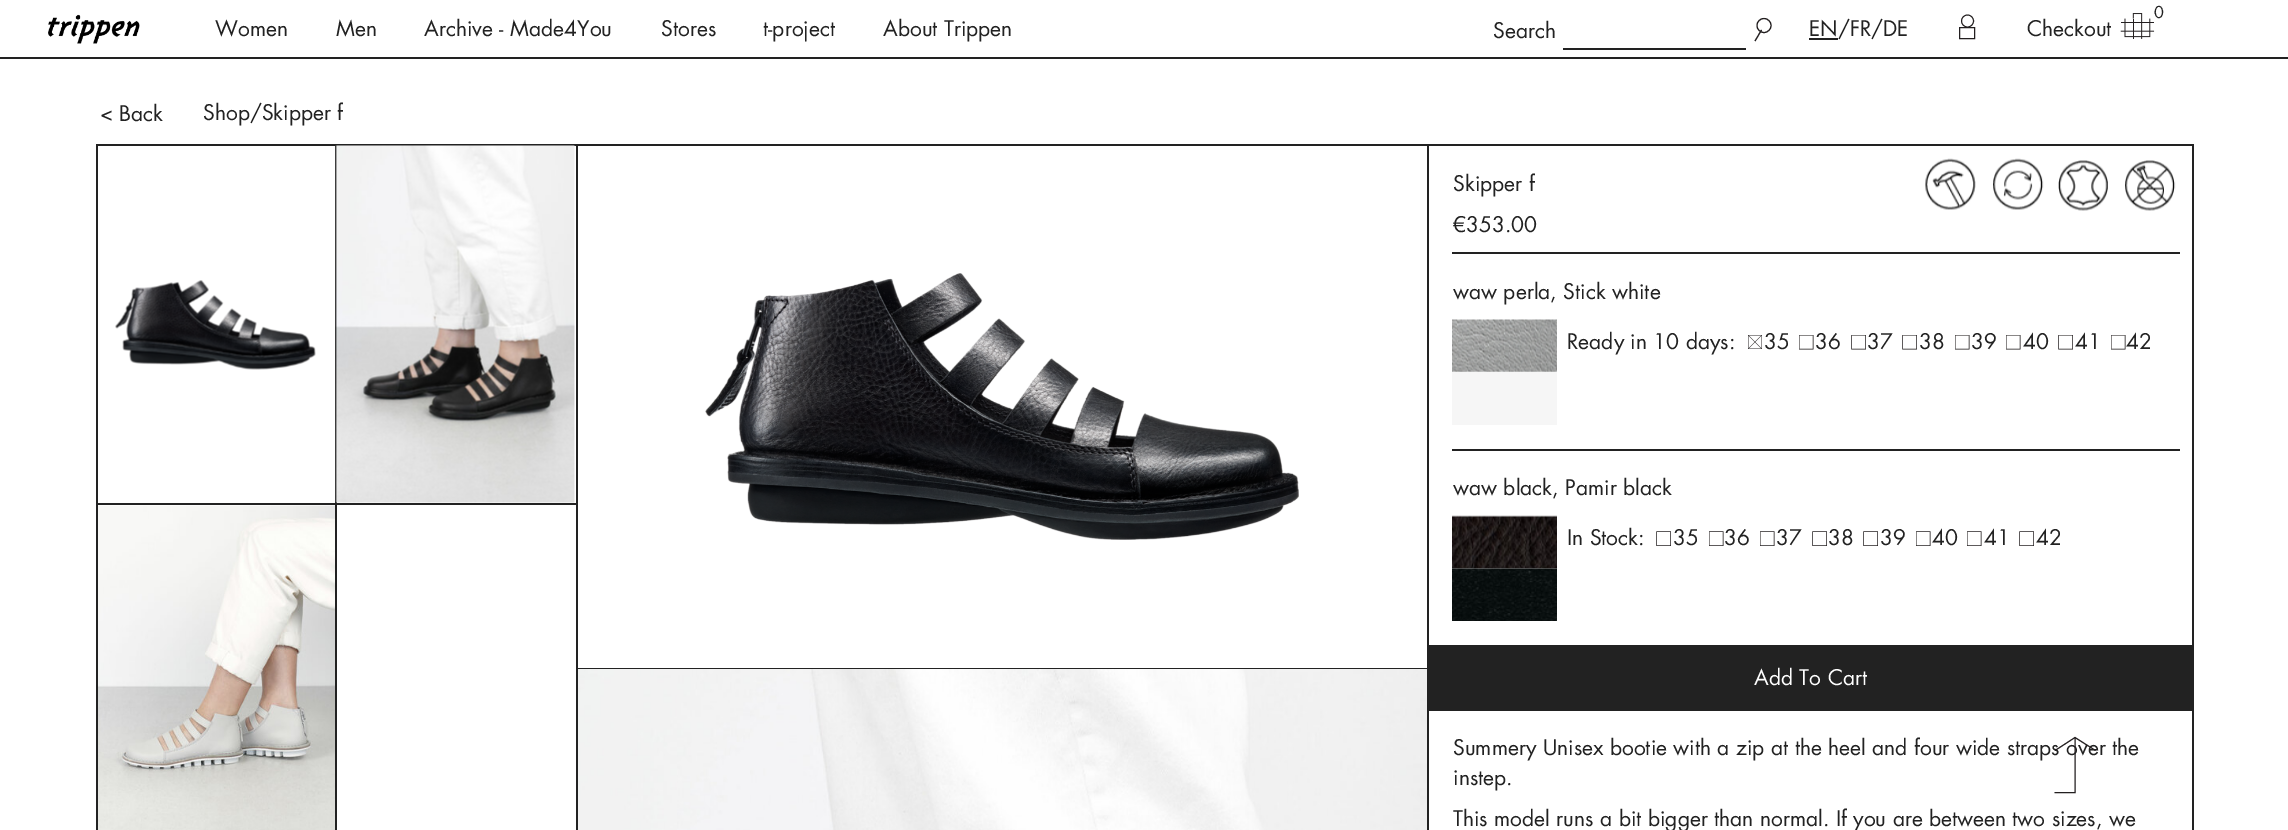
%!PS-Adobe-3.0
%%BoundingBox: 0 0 2288 830
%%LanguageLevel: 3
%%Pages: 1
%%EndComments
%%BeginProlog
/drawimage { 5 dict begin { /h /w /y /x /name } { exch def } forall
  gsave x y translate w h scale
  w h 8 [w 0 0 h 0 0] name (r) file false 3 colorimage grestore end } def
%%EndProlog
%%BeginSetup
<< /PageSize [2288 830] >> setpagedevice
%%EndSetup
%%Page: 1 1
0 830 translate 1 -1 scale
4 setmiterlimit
1 setgray
0 0 2288 830 rectfill
0.133 setgray
0 57 2288 2 rectfill
(images/1.raw) 48 14 92 30 drawimage
0.137 0.122 0.125 setrgbcolor
1.1 setlinewidth
newpath 1764 25.5 7 0 360 arc closepath stroke
newpath 1761.5 30 moveto 1755 41 lineto stroke
0.133 setgray
1563 48 183 2 rectfill
1809 38 29 2 rectfill
0.137 0.122 0.125 setrgbcolor
0.9 setlinewidth
newpath 1967.5 21 6 0 360 arc closepath stroke
1 setlinewidth
1959.5 27.5 15 11 rectstroke
(images/2.raw) 2120 13 35 26 drawimage
0.133 setgray
96 144 2097 2 rectfill
96 144 2 686 rectfill
335 146 2 358 rectfill
(images/3.raw) 335 145 240 358 drawimage
98 503 478 2 rectfill
(images/4.raw) 115 280 201 90 drawimage
335 504 2 326 rectfill
(images/5.raw) 98 505 237 325 drawimage
1427 144 2 686 rectfill
576 144 2 686 rectfill
578 668 849 1 rectfill
(images/6.raw) 705 273 594 267 drawimage
(images/7.raw) 578 669 849 161 drawimage
2192 144 2 686 rectfill
(images/8.raw) 1925 158 51 52 drawimage
(images/9.raw) 1993 158 51 52 drawimage
(images/10.raw) 2058 160 50 51 drawimage
(images/11.raw) 2125 160 51 51 drawimage
1452 252 728 2 rectfill
(images/12.raw) 1452 319 105 53 drawimage
0.965 setgray
1452 372 105 53 rectfill
(images/13.raw) 1748 335 14 14 drawimage
gsave
1799 335 15 15 rectclip
0.137 0.122 0.125 setrgbcolor
0.5 setlinewidth
newpath 1799 335 moveto 1813 335 lineto 1813 349 lineto 1799 349 lineto closepath stroke
grestore
gsave
1851 335 15 15 rectclip
0.137 0.122 0.125 setrgbcolor
0.5 setlinewidth
newpath 1851.5 335 moveto 1865.5 335 lineto 1865.5 349 lineto 1851.5 349 lineto closepath stroke
grestore
gsave
1902 335 15 15 rectclip
0.137 0.122 0.125 setrgbcolor
0.5 setlinewidth
newpath 1902.5 335 moveto 1916.5 335 lineto 1916.5 349 lineto 1902.5 349 lineto closepath stroke
grestore
gsave
1955 335 15 15 rectclip
0.137 0.122 0.125 setrgbcolor
0.5 setlinewidth
newpath 1955 335 moveto 1969 335 lineto 1969 349 lineto 1955 349 lineto closepath stroke
grestore
gsave
2006 335 15 15 rectclip
0.137 0.122 0.125 setrgbcolor
0.5 setlinewidth
newpath 2006 335 moveto 2020 335 lineto 2020 349 lineto 2006 349 lineto closepath stroke
grestore
gsave
2058 335 15 15 rectclip
0.137 0.122 0.125 setrgbcolor
0.5 setlinewidth
newpath 2058.5 335 moveto 2072.5 335 lineto 2072.5 349 lineto 2058.5 349 lineto closepath stroke
grestore
gsave
2111 335 15 15 rectclip
0.137 0.122 0.125 setrgbcolor
0.5 setlinewidth
newpath 2111 335 moveto 2125 335 lineto 2125 349 lineto 2111 349 lineto closepath stroke
grestore
0.133 setgray
1452 449 728 2 rectfill
(images/14.raw) 1452 515 105 54 drawimage
(images/15.raw) 1452 568 105 53 drawimage
0.137 0.122 0.125 setrgbcolor
0.5 setlinewidth
newpath 1656.5 531.5 moveto 1670.5 531.5 lineto 1670.5 545.5 lineto 1656.5 545.5 lineto closepath stroke
gsave
1709 531 15 15 rectclip
newpath 1709 531.5 moveto 1723 531.5 lineto 1723 545.5 lineto 1709 545.5 lineto closepath stroke
grestore
gsave
1760 531 15 15 rectclip
newpath 1760 531.5 moveto 1774 531.5 lineto 1774 545.5 lineto 1760 545.5 lineto closepath stroke
grestore
newpath 1812.5 531.5 moveto 1826.5 531.5 lineto 1826.5 545.5 lineto 1812.5 545.5 lineto closepath stroke
newpath 1863.5 531.5 moveto 1877.5 531.5 lineto 1877.5 545.5 lineto 1863.5 545.5 lineto closepath stroke
gsave
1916 531 15 15 rectclip
newpath 1916 531.5 moveto 1930 531.5 lineto 1930 545.5 lineto 1916 545.5 lineto closepath stroke
grestore
gsave
1967 531 15 15 rectclip
newpath 1967 531.5 moveto 1981 531.5 lineto 1981 545.5 lineto 1967 545.5 lineto closepath stroke
grestore
newpath 2019.5 531.5 moveto 2033.5 531.5 lineto 2033.5 545.5 lineto 2019.5 545.5 lineto closepath stroke
0.133 setgray
1429 645 763 66 rectfill
/Futura-Regular [21 0 0 -21 0 0] selectfont
215 36 moveto (Women) show
336 36 moveto (Men) show
424 36 moveto (Archive - Made4You) show
661 36 moveto (Stores) show
763 36 moveto (t-project) show
883 36 moveto (About Trippen) show
1493 38 moveto (Search) show
1809 36 moveto (EN/FR/DE) show
/Futura-Regular [16 0 0 -16 0 0] selectfont
2154 18 moveto (0) show
/Futura-Regular [21 0 0 -21 0 0] selectfont
2027 36 moveto (Checkout) show
100 121 moveto (< Back) show
203 120 moveto (Shop/Skipper f) show
1453 191 moveto (Skipper f) show
1453 232 moveto (€353.00) show
1453 299 moveto (waw perla, Stick white) show
1567 349 moveto (Ready in 10 days:) show
1764 349 moveto (35) show
1815 349 moveto (36) show
1867 349 moveto (37) show
1919 349 moveto (38) show
1971 349 moveto (39) show
2023 349 moveto (40) show
2075 349 moveto (41) show
2126 349 moveto (42) show
1453 495 moveto (waw black, Pamir black) show
1567 545 moveto (In Stock:) show
1673 545 moveto (35) show
1724 545 moveto (36) show
1776 545 moveto (37) show
1828 545 moveto (38) show
1880 545 moveto (39) show
1932 545 moveto (40) show
1984 545 moveto (41) show
2036 545 moveto (42) show
1 setgray
1754 685 moveto (Add To Cart) show
0.133 setgray
1453 755 moveto (Summery Unisex bootie with a zip at the heel and four wide straps over the) show
1453 785 moveto (instep.) show
1453 826 moveto (This model runs a bit bigger than normal. If you are between two sizes, we) show
0.137 0.122 0.125 setrgbcolor
1 setlinewidth
newpath 2054.5 792.5 moveto 2075 792.5 lineto 2075 737.5 lineto 2055 750.5 moveto 2075 737.5 lineto 2095.5 750.5 lineto stroke
showpage
%%EOF
